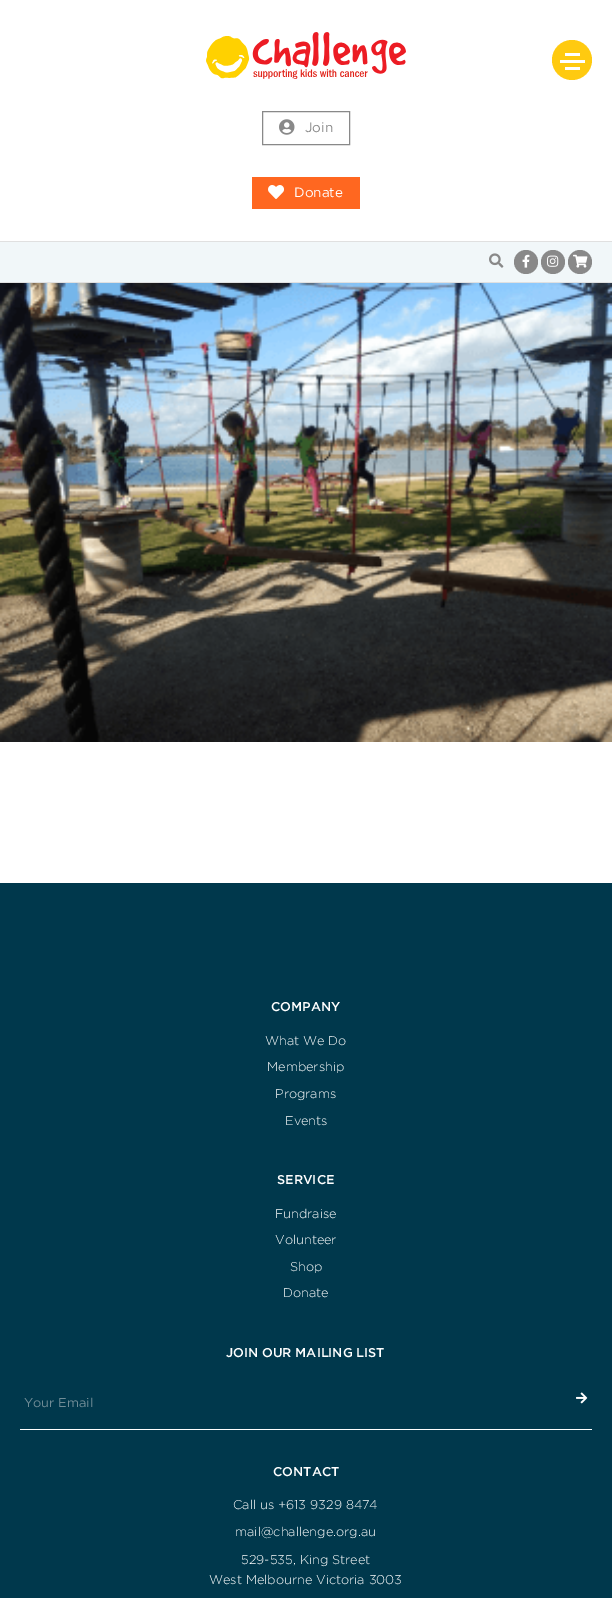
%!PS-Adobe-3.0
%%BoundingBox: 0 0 612 1598
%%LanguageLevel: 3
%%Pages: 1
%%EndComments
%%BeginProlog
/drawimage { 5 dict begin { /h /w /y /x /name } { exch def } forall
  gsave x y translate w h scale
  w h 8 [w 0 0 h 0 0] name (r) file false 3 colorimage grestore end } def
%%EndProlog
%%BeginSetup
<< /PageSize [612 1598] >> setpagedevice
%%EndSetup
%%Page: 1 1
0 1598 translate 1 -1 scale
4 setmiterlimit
1 setgray
0 0 612 1598 rectfill
1 0.792 0.063 setrgbcolor
newpath 572 60 20 0 360 arc closepath fill
1 setgray
565 53 15 3 rectfill
560 60 25 3 rectfill
565 67 15 3 rectfill
(images/1.raw) 206 32 200 47 drawimage
0.537 setgray
262.5 111.5 87 33 rectstroke
(images/2.raw) 279 119 16 16 drawimage
1 0.404 0.125 setrgbcolor
252 177 108 32 rectfill
(images/3.raw) 268 185 16 14 drawimage
0.945 0.969 0.976 setrgbcolor
0 242 612 40 rectfill
0.878 setgray
0 241 612 1 rectfill
0 282 612 1 rectfill
(images/4.raw) 489 253 15 15 drawimage
0.537 setgray
newpath 526 262 12 0 360 arc closepath fill
(images/5.raw) 522 254 8 14 drawimage
newpath 553 262 12 0 360 arc closepath fill
(images/6.raw) 547 255 12 12 drawimage
newpath 580 262 12 0 360 arc closepath fill
(images/7.raw) 573 254 15 14 drawimage
(images/8.raw) 0 283 612 459 drawimage
0 0.22 0.298 setrgbcolor
0 883 612 715 rectfill
1 setgray
20 1429 572 1 rectfill
(images/9.raw) 576 1392 12 12 drawimage
/Gotham-Regular [13.5 0 0 -13.5 0 0] selectfont
0.537 setgray
305 132 moveto (Join) show
1 setgray
294 197 moveto (Donate) show
/Gotham-Medium [12.75 0 0 -12.75 0 0] selectfont
271 1011 moveto (COMPANY) show
/Gotham-Light [12.75 0 0 -12.75 0 0] selectfont
265 1045 moveto (What We Do) show
267 1071 moveto (Membership) show
275 1098 moveto (Programs) show
285 1125 moveto (Events) show
/Gotham-Medium [12.75 0 0 -12.75 0 0] selectfont
277 1184 moveto (SERVICE) show
/Gotham-Light [12.75 0 0 -12.75 0 0] selectfont
275 1218 moveto (Fundraise) show
275 1244 moveto (Volunteer) show
290 1271 moveto (Shop) show
283 1297 moveto (Donate) show
/Gotham-Medium [12.75 0 0 -12.75 0 0] selectfont
226 1357 moveto (JOIN OUR MAILING LIST) show
/Gotham-Regular [12.75 0 0 -12.75 0 0] selectfont
0.439 0.549 0.588 setrgbcolor
24 1407 moveto (Your Email) show
/Gotham-Medium [12.75 0 0 -12.75 0 0] selectfont
1 setgray
273 1476 moveto (CONTACT) show
/Gotham-Light [12.75 0 0 -12.75 0 0] selectfont
233 1509 moveto (Call us +613 9329 8474) show
235 1536 moveto (mail@challenge.org.au) show
241 1564 moveto (529-535, King Street) show
209 1584 moveto (West Melbourne Victoria 3003) show
showpage
%%EOF
